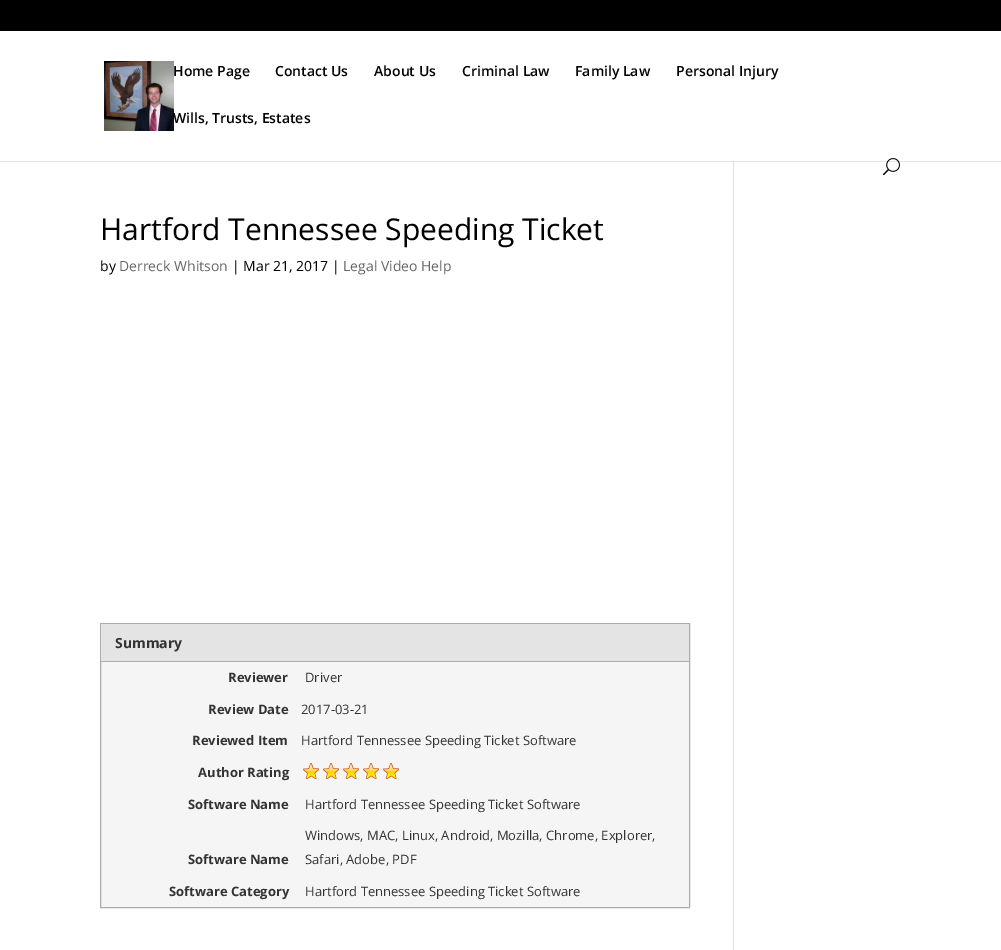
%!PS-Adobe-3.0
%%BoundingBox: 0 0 1001 950
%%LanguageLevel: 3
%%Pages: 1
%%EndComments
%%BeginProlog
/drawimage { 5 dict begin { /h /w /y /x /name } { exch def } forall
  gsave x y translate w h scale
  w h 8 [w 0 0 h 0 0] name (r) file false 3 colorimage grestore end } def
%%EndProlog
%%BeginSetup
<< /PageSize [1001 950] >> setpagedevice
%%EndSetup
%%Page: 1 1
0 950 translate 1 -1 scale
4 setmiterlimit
1 setgray
0 0 1001 950 rectfill
0.902 setgray
0 161 1001 1 rectfill
0 setgray
0 0 1001 31 rectfill
0.886 setgray
733 156 1 794 rectfill
1 setgray
733 156 1 5 rectfill
(images/1.raw) 104 61 70 70 drawimage
(images/2.raw) 883 158 17 18 drawimage
0.961 setgray
101 662 588 245 rectfill
0.675 setgray
100.5 623.5 589 284 rectstroke
0.894 setgray
101 624 588 37 rectfill
0.675 setgray
101 661 588 1 rectfill
(images/3.raw) 303 763 16 16 drawimage
(images/3.raw) 323 763 16 16 drawimage
(images/3.raw) 343 763 16 16 drawimage
(images/3.raw) 363 763 16 16 drawimage
(images/3.raw) 383 763 16 16 drawimage
0.796 setgray
733 161 1 1 rectfill
/OpenSans-SemiBold [14 0 0 -14 0 0] selectfont
0 setgray
173 76 moveto (Home Page) show
275 76 moveto (Contact Us) show
374 76 moveto (About Us) show
462 76 moveto (Criminal Law) show
575 76 moveto (Family Law) show
676 76 moveto (Personal Injury) show
173 123 moveto (Wills, Trusts, Estates) show
/OpenSans-Regular [30 0 0 -30 0 0] selectfont
100 240 moveto (Hartford Tennessee Speeding Ticket) show
/OpenSans-Regular [14 0 0 -14 0 0] selectfont
100 271 moveto (by) show
0.4 setgray
119 271 moveto (Derreck Whitson) show
0 setgray
232 271 moveto (| Mar 21, 2017 |) show
0.4 setgray
343 271 moveto (Legal Video Help) show
/OpenSans-Bold [14 0 0 -14 0 0] selectfont
0.2 setgray
115 648 moveto (Summary) show
/OpenSans-Bold [13 0 0 -13 0 0] selectfont
228 682 moveto (Reviewer) show
/OpenSans-Regular [13 0 0 -13 0 0] selectfont
305 682 moveto (Driver) show
/OpenSans-Bold [13 0 0 -13 0 0] selectfont
208 714 moveto (Review Date) show
/OpenSans-Regular [13 0 0 -13 0 0] selectfont
301 714 moveto (2017-03-21) show
/OpenSans-Bold [13 0 0 -13 0 0] selectfont
192 745 moveto (Reviewed Item) show
/OpenSans-Regular [13 0 0 -13 0 0] selectfont
301 745 moveto (Hartford Tennessee Speeding Ticket Software) show
/OpenSans-Bold [13 0 0 -13 0 0] selectfont
198 777 moveto (Author Rating) show
188 809 moveto (Software Name) show
/OpenSans-Regular [13 0 0 -13 0 0] selectfont
305 809 moveto (Hartford Tennessee Speeding Ticket Software) show
/OpenSans-Bold [13 0 0 -13 0 0] selectfont
188 864 moveto (Software Name) show
/OpenSans-Regular [13 0 0 -13 0 0] selectfont
305 840 moveto (Windows, MAC, Linux, Android, Mozilla, Chrome, Explorer,) show
305 864 moveto (Safari, Adobe, PDF) show
/OpenSans-Bold [13 0 0 -13 0 0] selectfont
169 896 moveto (Software Category) show
/OpenSans-Regular [13 0 0 -13 0 0] selectfont
305 896 moveto (Hartford Tennessee Speeding Ticket Software) show
showpage
%%EOF
